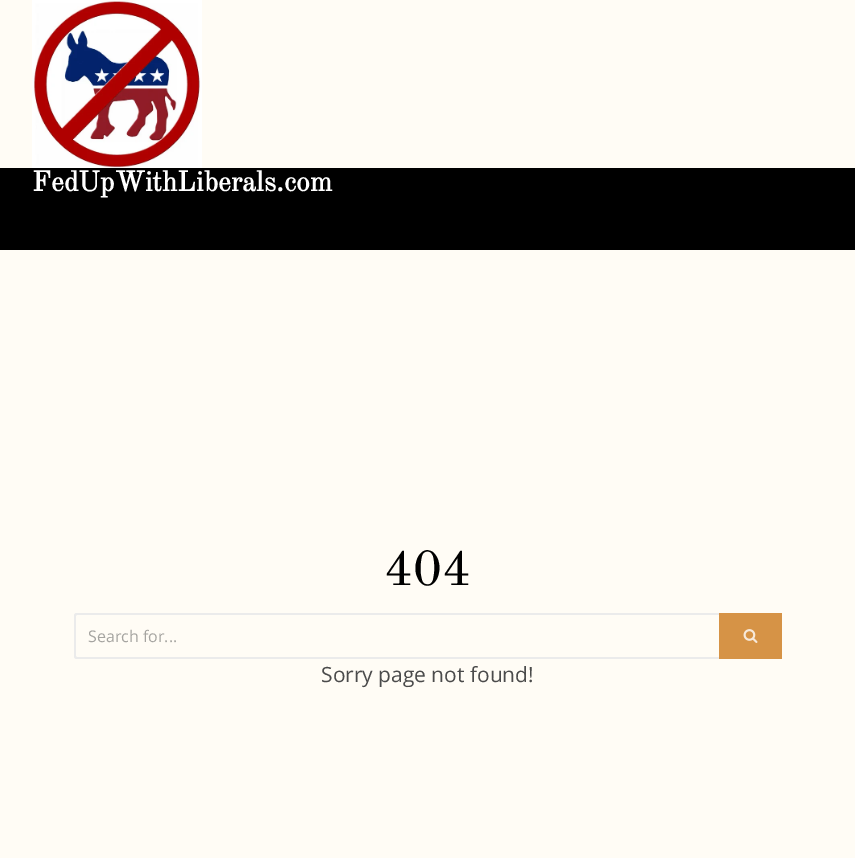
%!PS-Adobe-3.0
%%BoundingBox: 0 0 855 858
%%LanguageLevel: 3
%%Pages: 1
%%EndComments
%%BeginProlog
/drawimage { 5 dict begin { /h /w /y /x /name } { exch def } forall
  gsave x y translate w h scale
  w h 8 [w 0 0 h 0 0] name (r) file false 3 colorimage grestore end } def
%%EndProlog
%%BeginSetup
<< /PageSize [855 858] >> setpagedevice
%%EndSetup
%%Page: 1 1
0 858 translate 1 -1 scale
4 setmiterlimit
1 0.988 0.961 setrgbcolor
0 0 855 858 rectfill
(images/1.raw) 32 0 170 168 drawimage
0 setgray
0 168 855 82 rectfill
0.922 setgray
newpath 77 613 moveto 719 613 lineto 719 659 lineto 77 659 lineto 75 659 74 658 74 656 curveto 74 616 lineto 74 614 75 613 77 613 curveto closepath 77 615 moveto 719 615 lineto 719 657 lineto 77 657 lineto 76 657 76 657 76 656 curveto 76 616 lineto 76 615 76 615 77 615 curveto closepath eofill
0.839 0.576 0.275 setrgbcolor
719 613 63 46 rectfill
(images/2.raw) 743 629 15 14 drawimage
/OldStandardTT-Bold [28 0 0 -28 0 0] selectfont
1 setgray
32 191 moveto (FedUpWithLiberals.com) show
/OldStandardTT-Regular [50 0 0 -50 0 0] selectfont
0 setgray
384 585 moveto (404) show
/OpenSans-Regular [16 0 0 -16 0 0] selectfont
0.647 0.643 0.627 setrgbcolor
88 642 moveto (Search for...) show
/OpenSans-Regular [21 0 0 -21 0 0] selectfont
0.294 setgray
321 682 moveto (Sorry page not found!) show
showpage
%%EOF
